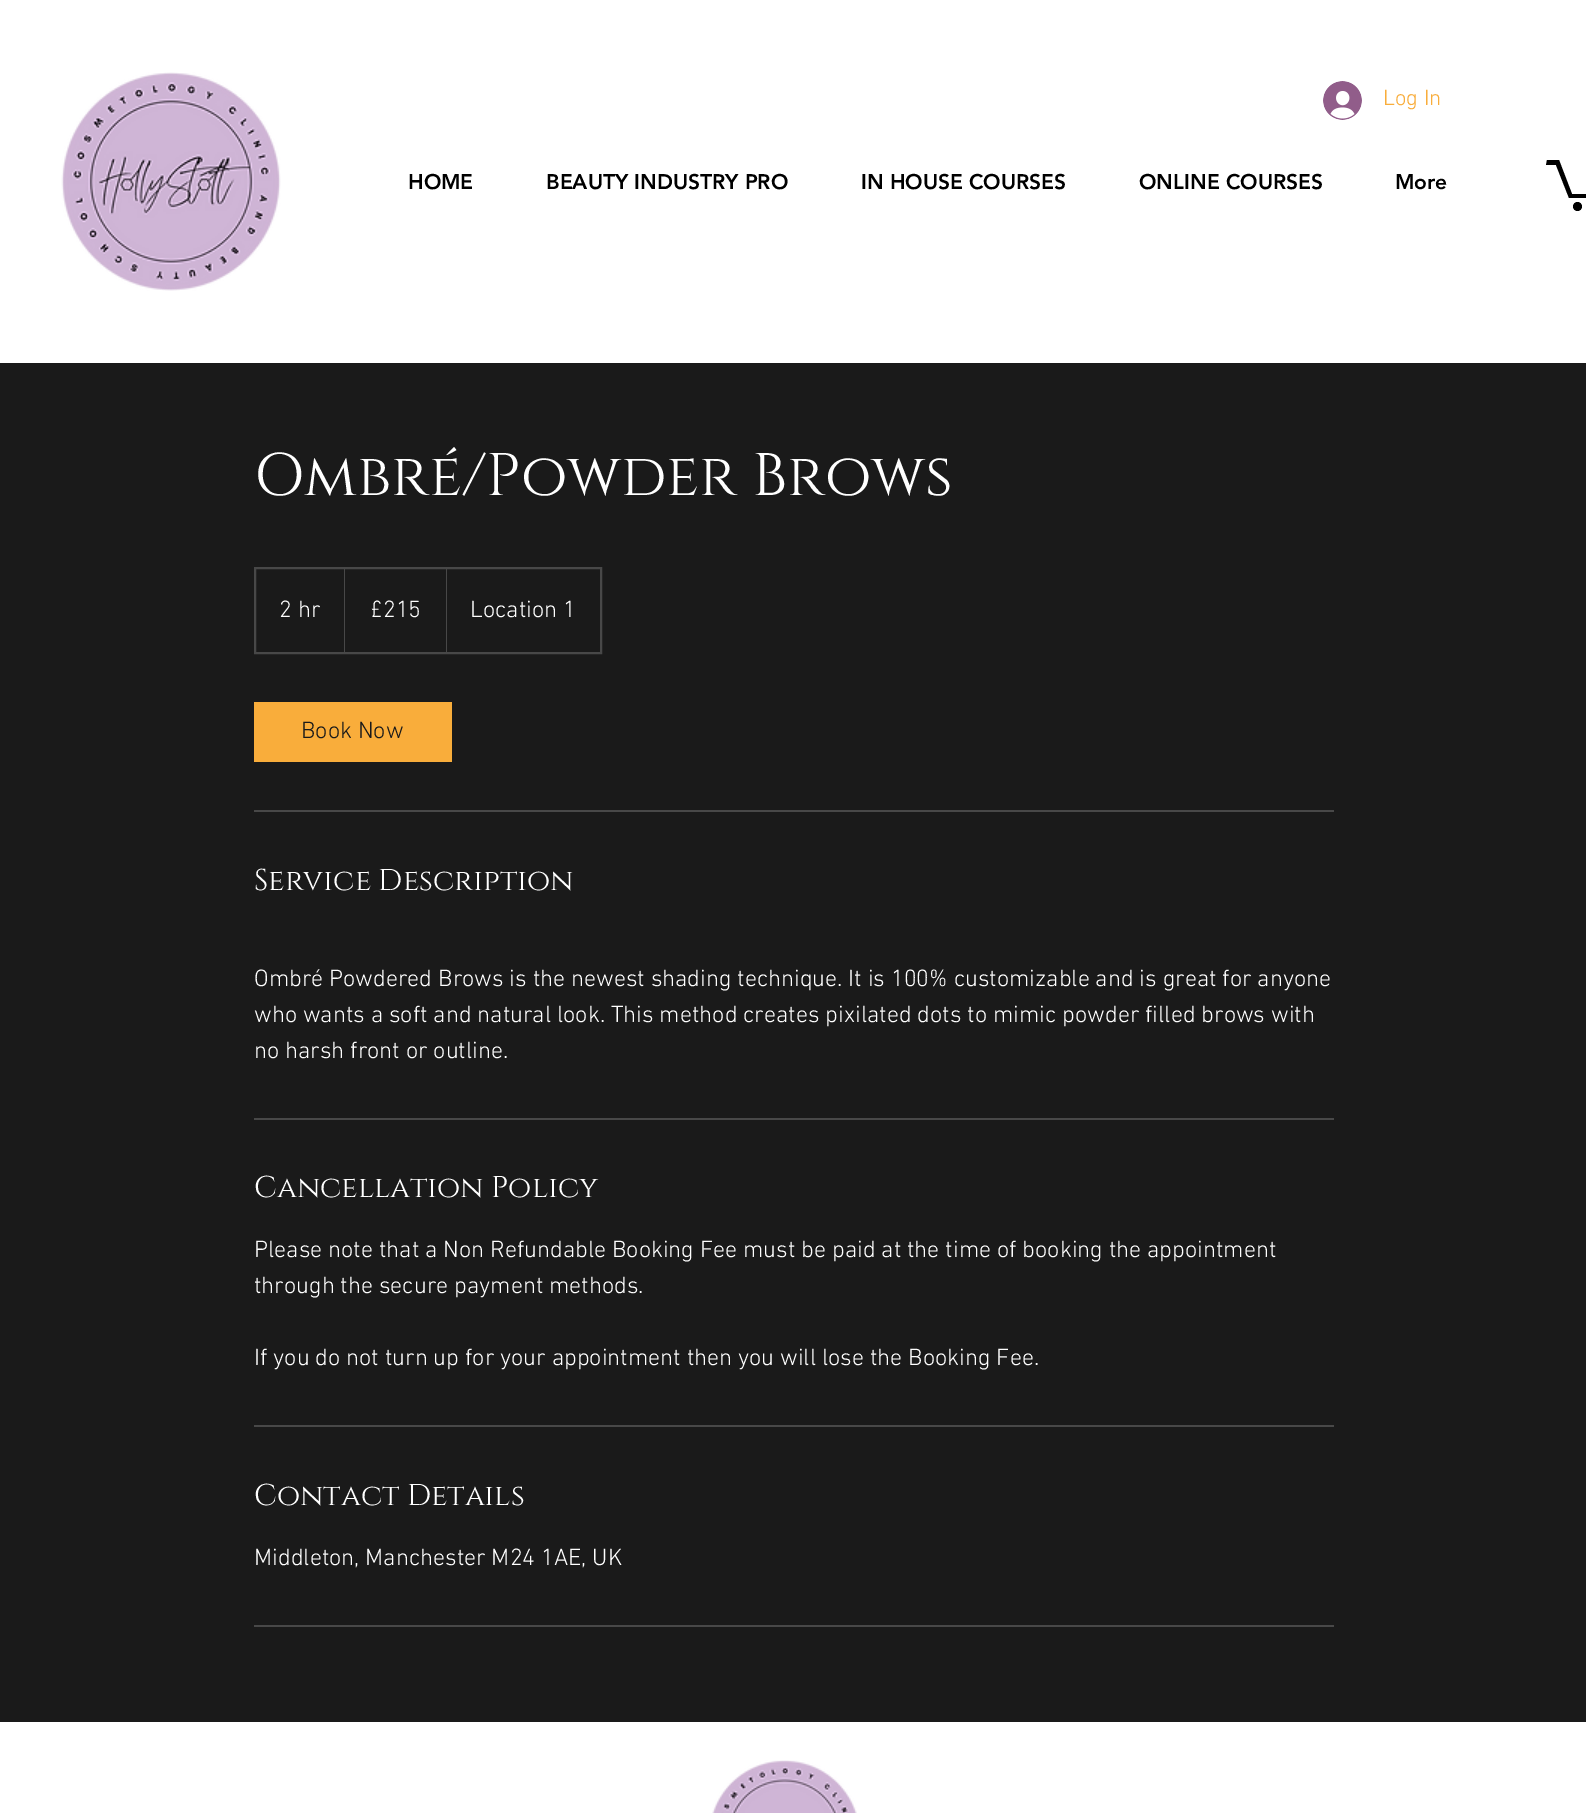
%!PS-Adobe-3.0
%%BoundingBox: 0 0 1586 1813
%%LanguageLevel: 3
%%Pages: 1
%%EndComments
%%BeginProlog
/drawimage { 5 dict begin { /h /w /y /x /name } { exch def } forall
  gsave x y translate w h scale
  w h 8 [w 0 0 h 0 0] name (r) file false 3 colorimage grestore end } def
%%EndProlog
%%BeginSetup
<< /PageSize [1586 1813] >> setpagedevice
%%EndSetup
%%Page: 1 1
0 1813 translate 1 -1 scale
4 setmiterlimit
1 setgray
0 0 1586 1813 rectfill
(images/1.raw) 61 72 220 219 drawimage
(images/2.raw) 1323 81 39 39 drawimage
0 setgray
newpath 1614 174 moveto 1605 198 lineto 1569 198 lineto 1556 165 lineto 1546 165 lineto 1547 160 lineto 1559 160 lineto 1572 194 lineto 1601 194 lineto 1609 174 lineto fill
newpath 1577.5 206.5 4.5 0 360 arc closepath fill
0.102 setgray
0 363 1586 1359 rectfill
0.282 setgray
2 setlinewidth
255 568 346 85 rectstroke
newpath 344 652 moveto 344 567 lineto 345 568 lineto 345 652 lineto closepath fill
newpath 446 652 moveto 446 567 lineto 447 568 lineto 447 652 lineto closepath fill
0.976 0.678 0.231 setrgbcolor
254 702 198 60 rectfill
0.282 setgray
254 810 1080 2 rectfill
254 1118 1080 2 rectfill
254 1425 1080 2 rectfill
254 1625 1080 2 rectfill
(images/3.raw) 712 1760 145 53 drawimage
/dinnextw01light-Light [22.5 0 0 -22.5 0 0] selectfont
0.976 0.678 0.231 setrgbcolor
1383 105 moveto (Log In) show
/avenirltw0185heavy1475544-Black [21 0 0 -21 0 0] selectfont
0 setgray
408 189 moveto (HOME) show
546 189 moveto (BEAUTY INDUSTRY PRO) show
861 189 moveto (IN HOUSE COURSES) show
1139 189 moveto (ONLINE COURSES) show
1395 189 moveto (More) show
/Cinzel-Regular [60 0 0 -60 0 0] selectfont
1 setgray
254 495 moveto (Ombré/Powder Brows) show
/dinnextw01light-Light [24 0 0 -24 0 0] selectfont
279 617 moveto (2 hr) show
370 617 moveto (£215) show
470 617 moveto (Location 1) show
0.102 setgray
301 738 moveto (Book Now) show
/Cinzel-Regular [30 0 0 -30 0 0] selectfont
1 setgray
254 890 moveto (Service Description) show
/dinnextw01light-Light [24 0 0 -24 0 0] selectfont
254 986 moveto (Ombré Powdered Brows is the newest shading technique. It is 100% customizable and is great for anyone) show
254 1022 moveto (who wants a soft and natural look. This method creates pixilated dots to mimic powder filled brows with) show
254 1058 moveto (no harsh front or outline.) show
/Cinzel-Regular [30 0 0 -30 0 0] selectfont
254 1197 moveto (Cancellation Policy) show
/dinnextw01light-Light [24 0 0 -24 0 0] selectfont
254 1257 moveto (Please note that a Non Refundable Booking Fee must be paid at the time of booking the appointment) show
254 1293 moveto (through the secure payment methods.) show
254 1365 moveto (If you do not turn up for your appointment then you will lose the Booking Fee.) show
/Cinzel-Regular [30 0 0 -30 0 0] selectfont
254 1505 moveto (Contact Details) show
/dinnextw01light-Light [24 0 0 -24 0 0] selectfont
254 1565 moveto (Middleton, Manchester M24 1AE, UK) show
showpage
%%EOF
